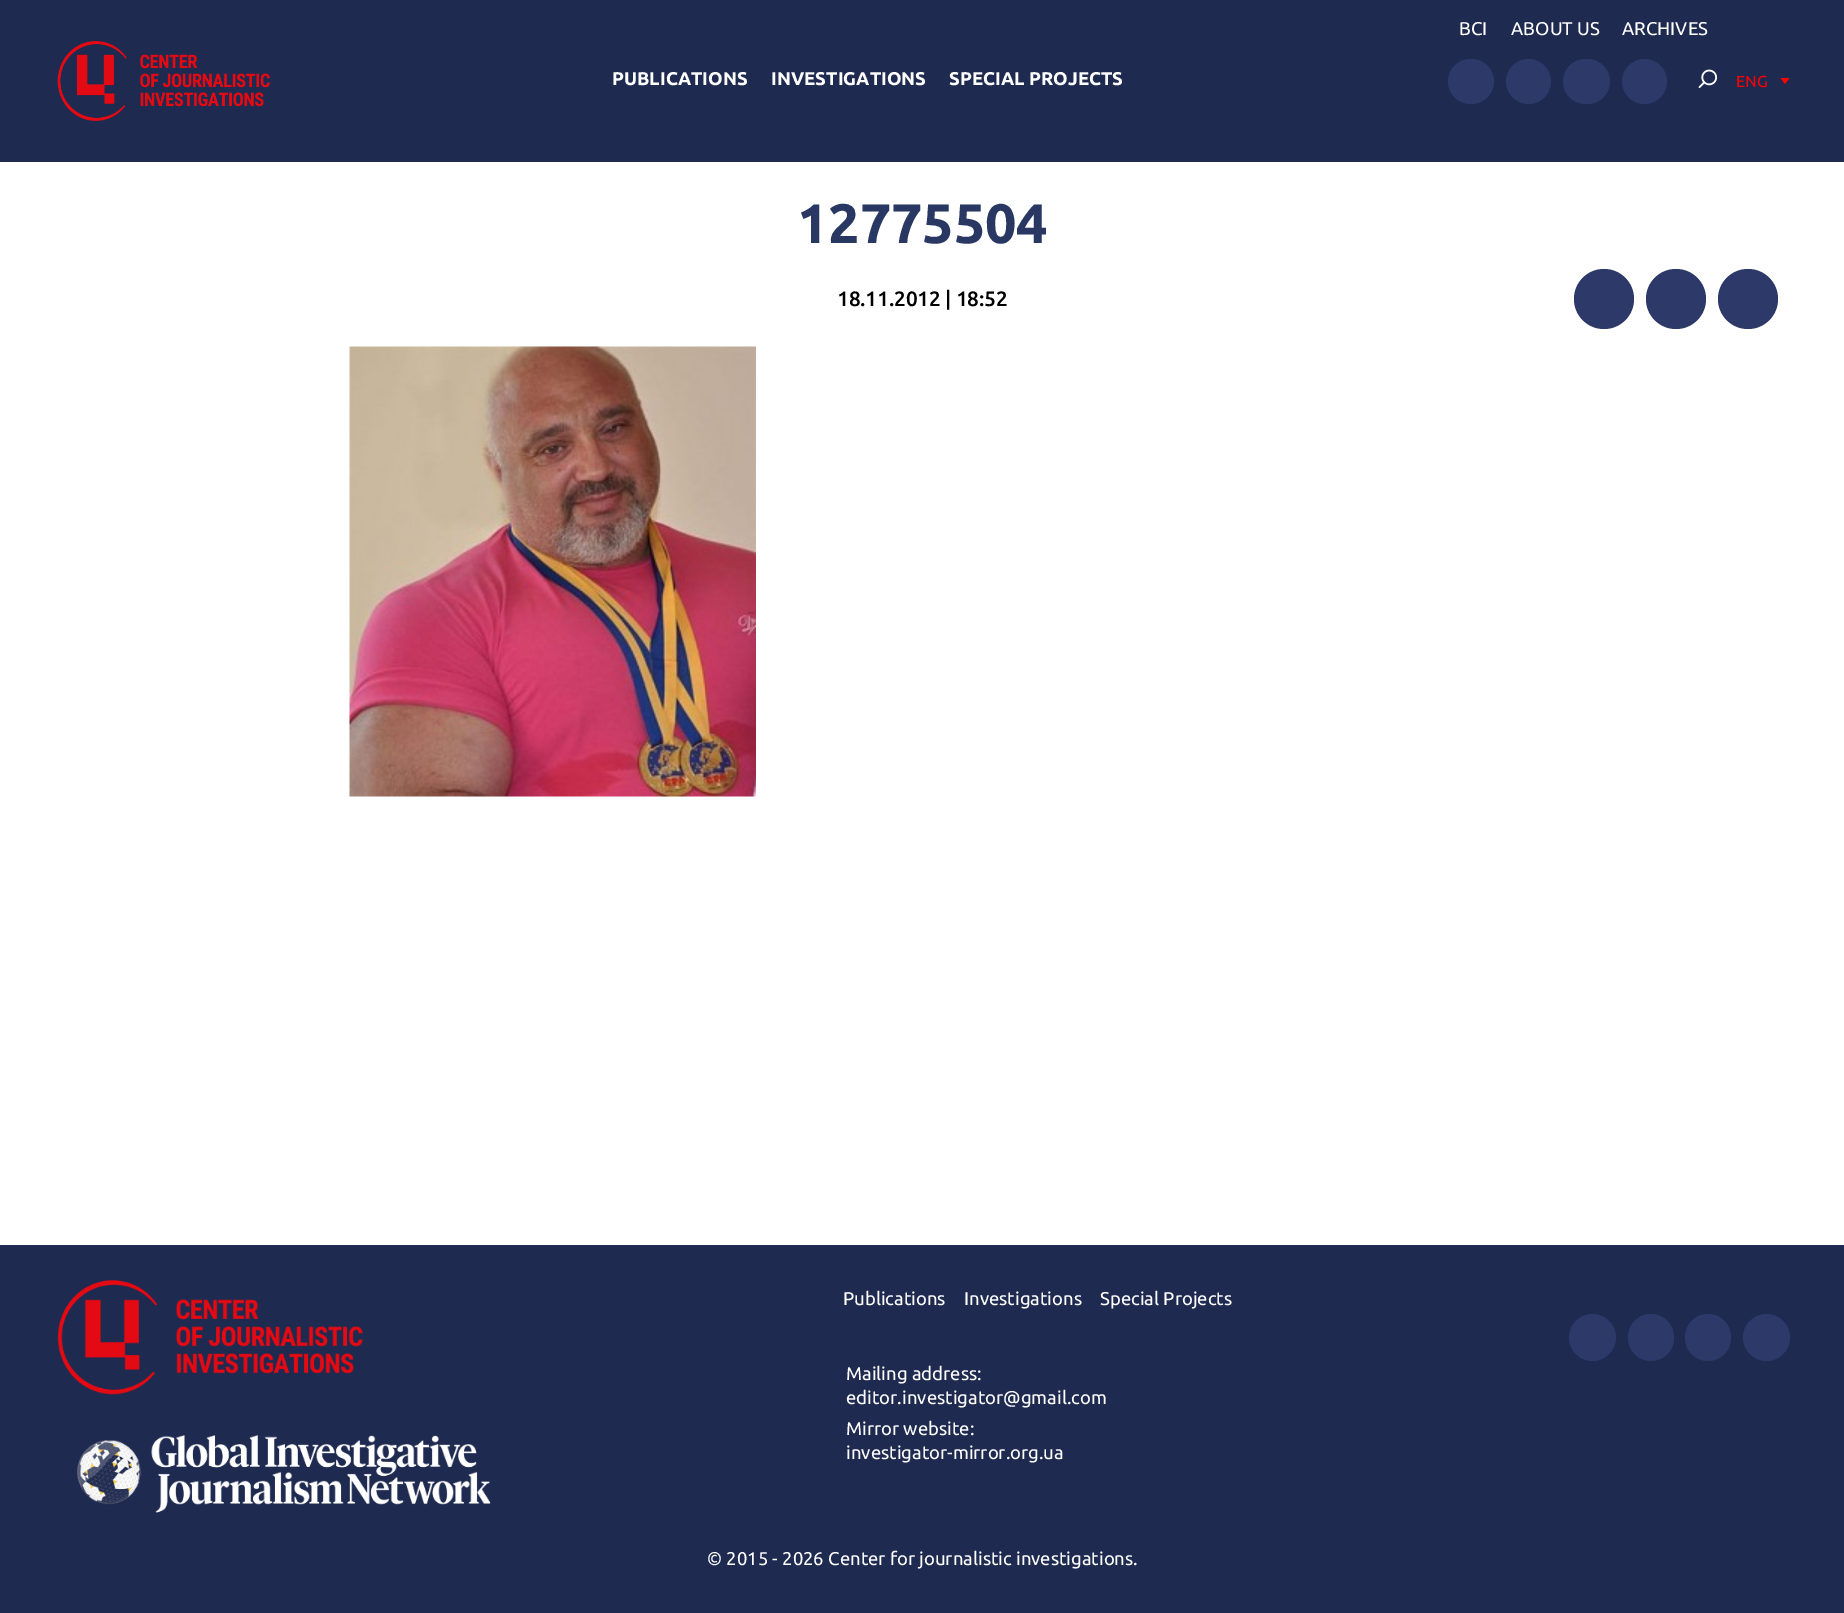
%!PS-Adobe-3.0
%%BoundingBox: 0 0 1844 1613
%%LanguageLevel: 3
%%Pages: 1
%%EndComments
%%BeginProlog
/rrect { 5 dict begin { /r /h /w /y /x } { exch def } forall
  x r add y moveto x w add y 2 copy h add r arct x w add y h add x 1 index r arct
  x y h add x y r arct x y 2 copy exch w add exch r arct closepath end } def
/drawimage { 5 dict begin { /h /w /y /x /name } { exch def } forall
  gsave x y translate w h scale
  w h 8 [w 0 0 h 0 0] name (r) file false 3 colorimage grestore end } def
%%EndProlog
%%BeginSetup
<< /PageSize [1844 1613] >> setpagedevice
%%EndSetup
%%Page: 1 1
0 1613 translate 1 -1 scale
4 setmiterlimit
1 setgray
0 0 1844 1613 rectfill
0.122 0.165 0.314 setrgbcolor
0 0 1844 162 rectfill
(images/1.raw) 57 41 213 80 drawimage
0.176 0.224 0.412 setrgbcolor
1448 59 46 45 22.5 rrect fill
newpath 1528.5 81.5 22.5 0 360 arc closepath fill
1563 59 47 45 22.5 rrect fill
newpath 1644.5 81.5 22.5 0 360 arc closepath fill
(images/2.raw) 1698 69 20 19 drawimage
1 0 0 setrgbcolor
newpath 1780.5 78 moveto 1789.5 78 lineto 1785 84 lineto closepath fill
0.176 0.224 0.412 setrgbcolor
newpath 1604 299 30 0 360 arc closepath fill
newpath 1676 299 30 0 360 arc closepath fill
newpath 1748 299 30 0 360 arc closepath fill
(images/3.raw) 349 346 407 451 drawimage
0.122 0.165 0.314 setrgbcolor
0 1245 1844 368 rectfill
(images/4.raw) 57 1280 306 115 drawimage
(images/5.raw) 76 1435 415 78 drawimage
0.176 0.224 0.412 setrgbcolor
newpath 1592.5 1337.5 23.5 0 360 arc closepath fill
1628 1314 46 47 23 rrect fill
1685 1314 46 47 23 rrect fill
newpath 1766.5 1337.5 23.5 0 360 arc closepath fill
/Ubuntu-Bold [18.5 0 0 -18.5 0 0] selectfont
1 setgray
612 85 moveto (PUBLICATIONS) show
771 85 moveto (INVESTIGATIONS) show
949 85 moveto (SPECIAL PROJECTS) show
/Ubuntu-Regular [18.5 0 0 -18.5 0 0] selectfont
1459 35 moveto (BCI) show
1511 35 moveto (ABOUT US) show
1622 35 moveto (ARCHIVES) show
/Ubuntu-Regular [16 0 0 -16 0 0] selectfont
1 0 0 setrgbcolor
1736 87 moveto (ENG) show
/Ubuntu-Bold [55.5 0 0 -55.5 0 0] selectfont
0.161 0.22 0.388 setrgbcolor
797 243 moveto -0.2 0 (12775504) ashow
/Ubuntu-Medium [20.75 0 0 -20.75 0 0] selectfont
0 setgray
837 306 moveto -0.2 0 (18.11.2012 | 18:52) ashow
/Ubuntu-Regular [18.5 0 0 -18.5 0 0] selectfont
1 setgray
843 1305 moveto (Publications) show
964 1305 moveto (Investigations) show
1100 1305 moveto (Special Projects) show
846 1380 moveto (Mailing address:) show
846 1404 moveto (editor.investigator@gmail.com) show
846 1435 moveto (Mirror website:) show
846 1459 moveto (investigator-mirror.org.ua) show
707 1565 moveto (© 2015 - 2026 Center for journalistic investigations.) show
showpage
%%EOF
